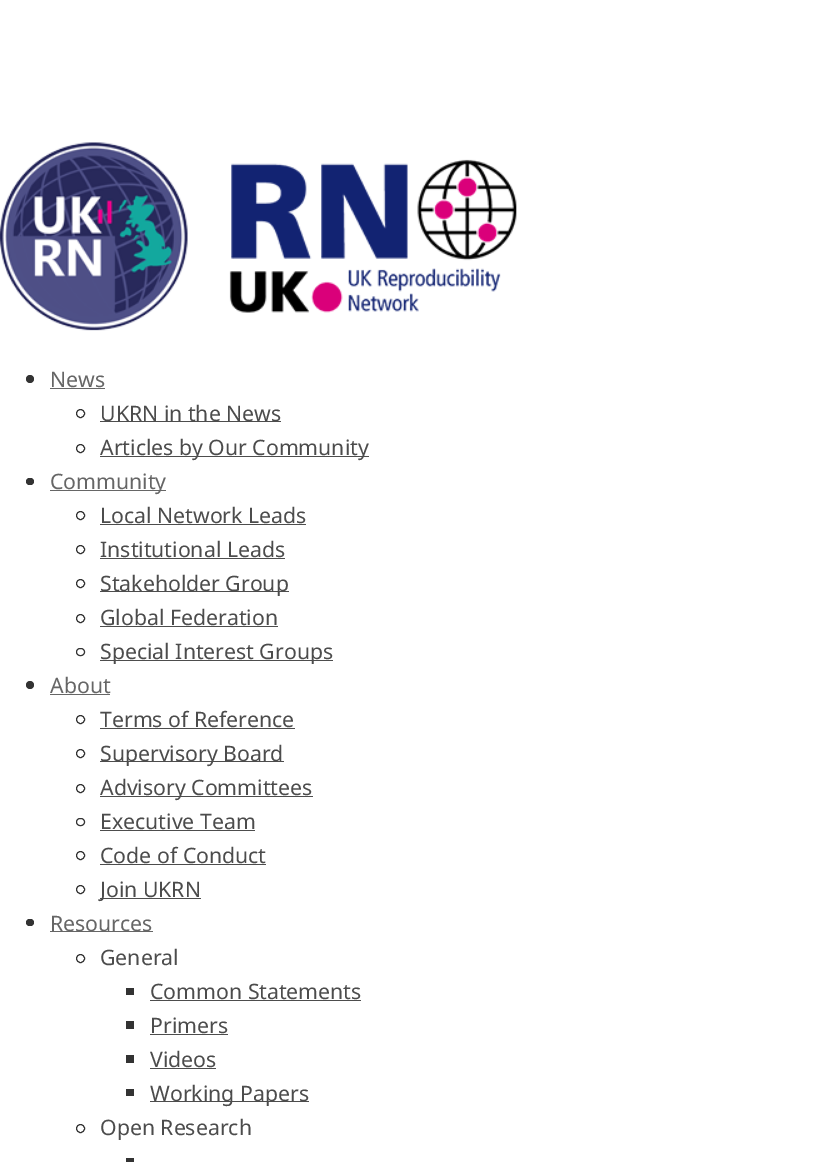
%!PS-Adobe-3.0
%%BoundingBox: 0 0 820 1162
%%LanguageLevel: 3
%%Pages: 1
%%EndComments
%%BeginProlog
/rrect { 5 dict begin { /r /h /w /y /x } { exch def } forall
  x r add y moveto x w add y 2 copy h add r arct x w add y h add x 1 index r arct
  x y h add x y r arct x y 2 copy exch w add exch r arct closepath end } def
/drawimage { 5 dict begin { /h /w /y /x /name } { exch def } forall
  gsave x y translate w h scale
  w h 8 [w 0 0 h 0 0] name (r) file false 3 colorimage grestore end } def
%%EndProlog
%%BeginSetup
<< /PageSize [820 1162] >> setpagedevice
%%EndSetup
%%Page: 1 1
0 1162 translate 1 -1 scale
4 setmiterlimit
1 setgray
0 0 820 1162 rectfill
(images/1.raw) 0 142 517 189 drawimage
0.2 setgray
newpath 30 379 4 0 360 arc closepath fill
0.4 setgray
50 388 55 1 rectfill
0.2 setgray
newpath 80.5 413.5 4 0 360 arc closepath stroke
0.302 setgray
100 421 181 1 rectfill
0.2 setgray
newpath 80.5 448.5 4 0 360 arc closepath stroke
0.302 setgray
100 456 269 1 rectfill
0.2 setgray
26 478 8 7 3.5 rrect fill
0.4 setgray
50 490 116 1 rectfill
0.2 setgray
newpath 80.5 515.5 4 0 360 arc closepath stroke
0.302 setgray
100 524 206 1 rectfill
0.2 setgray
newpath 80.5 549.5 4 0 360 arc closepath stroke
0.302 setgray
100 558 185 1 rectfill
0.2 setgray
newpath 80.5 583.5 4 0 360 arc closepath stroke
0.302 setgray
100 591 189 1 rectfill
0.2 setgray
newpath 80.5 618.5 4 0 360 arc closepath stroke
0.302 setgray
100 626 178 1 rectfill
0.2 setgray
76.5 648.5 8 7 3.5 rrect stroke
0.302 setgray
100 660 233 1 rectfill
0.2 setgray
newpath 30 685 4 0 360 arc closepath fill
0.4 setgray
50 694 60 1 rectfill
0.2 setgray
newpath 80.5 719.5 4 0 360 arc closepath stroke
0.302 setgray
100 728 195 1 rectfill
0.2 setgray
newpath 80.5 753.5 4 0 360 arc closepath stroke
0.302 setgray
100 761 184 1 rectfill
0.2 setgray
newpath 80.5 788.5 4 0 360 arc closepath stroke
0.302 setgray
100 796 213 1 rectfill
0.2 setgray
76.5 818.5 8 7 3.5 rrect stroke
0.302 setgray
100 830 155 1 rectfill
0.2 setgray
newpath 80.5 855.5 4 0 360 arc closepath stroke
0.302 setgray
100 864 166 1 rectfill
0.2 setgray
newpath 80.5 889.5 4 0 360 arc closepath stroke
0.302 setgray
100 898 101 1 rectfill
0.2 setgray
26 919 8 7 3.5 rrect fill
0.4 setgray
50 931 103 1 rectfill
0.2 setgray
newpath 80.5 958.5 4 0 360 arc closepath stroke
126 988 8 7 rectfill
0.302 setgray
150 1000 211 1 rectfill
0.2 setgray
126 1021 8 8 rectfill
0.302 setgray
150 1034 78 1 rectfill
0.2 setgray
126 1055 8 8 rectfill
0.302 setgray
150 1068 66 1 rectfill
0.2 setgray
126 1089 8 7 rectfill
0.302 setgray
150 1101 159 1 rectfill
0.2 setgray
newpath 80.5 1128.5 4 0 360 arc closepath stroke
126 1158 8 4 rectfill
/NotoSans-Regular [21.25 0 0 -21.25 0 0] selectfont
0.4 setgray
50 387 moveto (News) show
0.298 setgray
100 421 moveto (UKRN in the News) show
100 455 moveto (Articles by Our Community) show
0.4 setgray
50 489 moveto (Community) show
0.298 setgray
100 523 moveto (Local Network Leads) show
100 557 moveto (Institutional Leads) show
100 591 moveto (Stakeholder Group) show
100 625 moveto (Global Federation) show
100 659 moveto (Special Interest Groups) show
0.4 setgray
50 693 moveto (About) show
0.298 setgray
100 727 moveto (Terms of Reference) show
100 761 moveto (Supervisory Board) show
100 795 moveto (Advisory Committees) show
100 829 moveto (Executive Team) show
100 863 moveto (Code of Conduct) show
100 897 moveto (Join UKRN) show
0.4 setgray
50 931 moveto (Resources) show
0.298 setgray
100 965 moveto (General) show
150 999 moveto (Common Statements) show
150 1033 moveto (Primers) show
150 1067 moveto (Videos) show
150 1101 moveto (Working Papers) show
100 1135 moveto (Open Research) show
showpage
%%EOF
